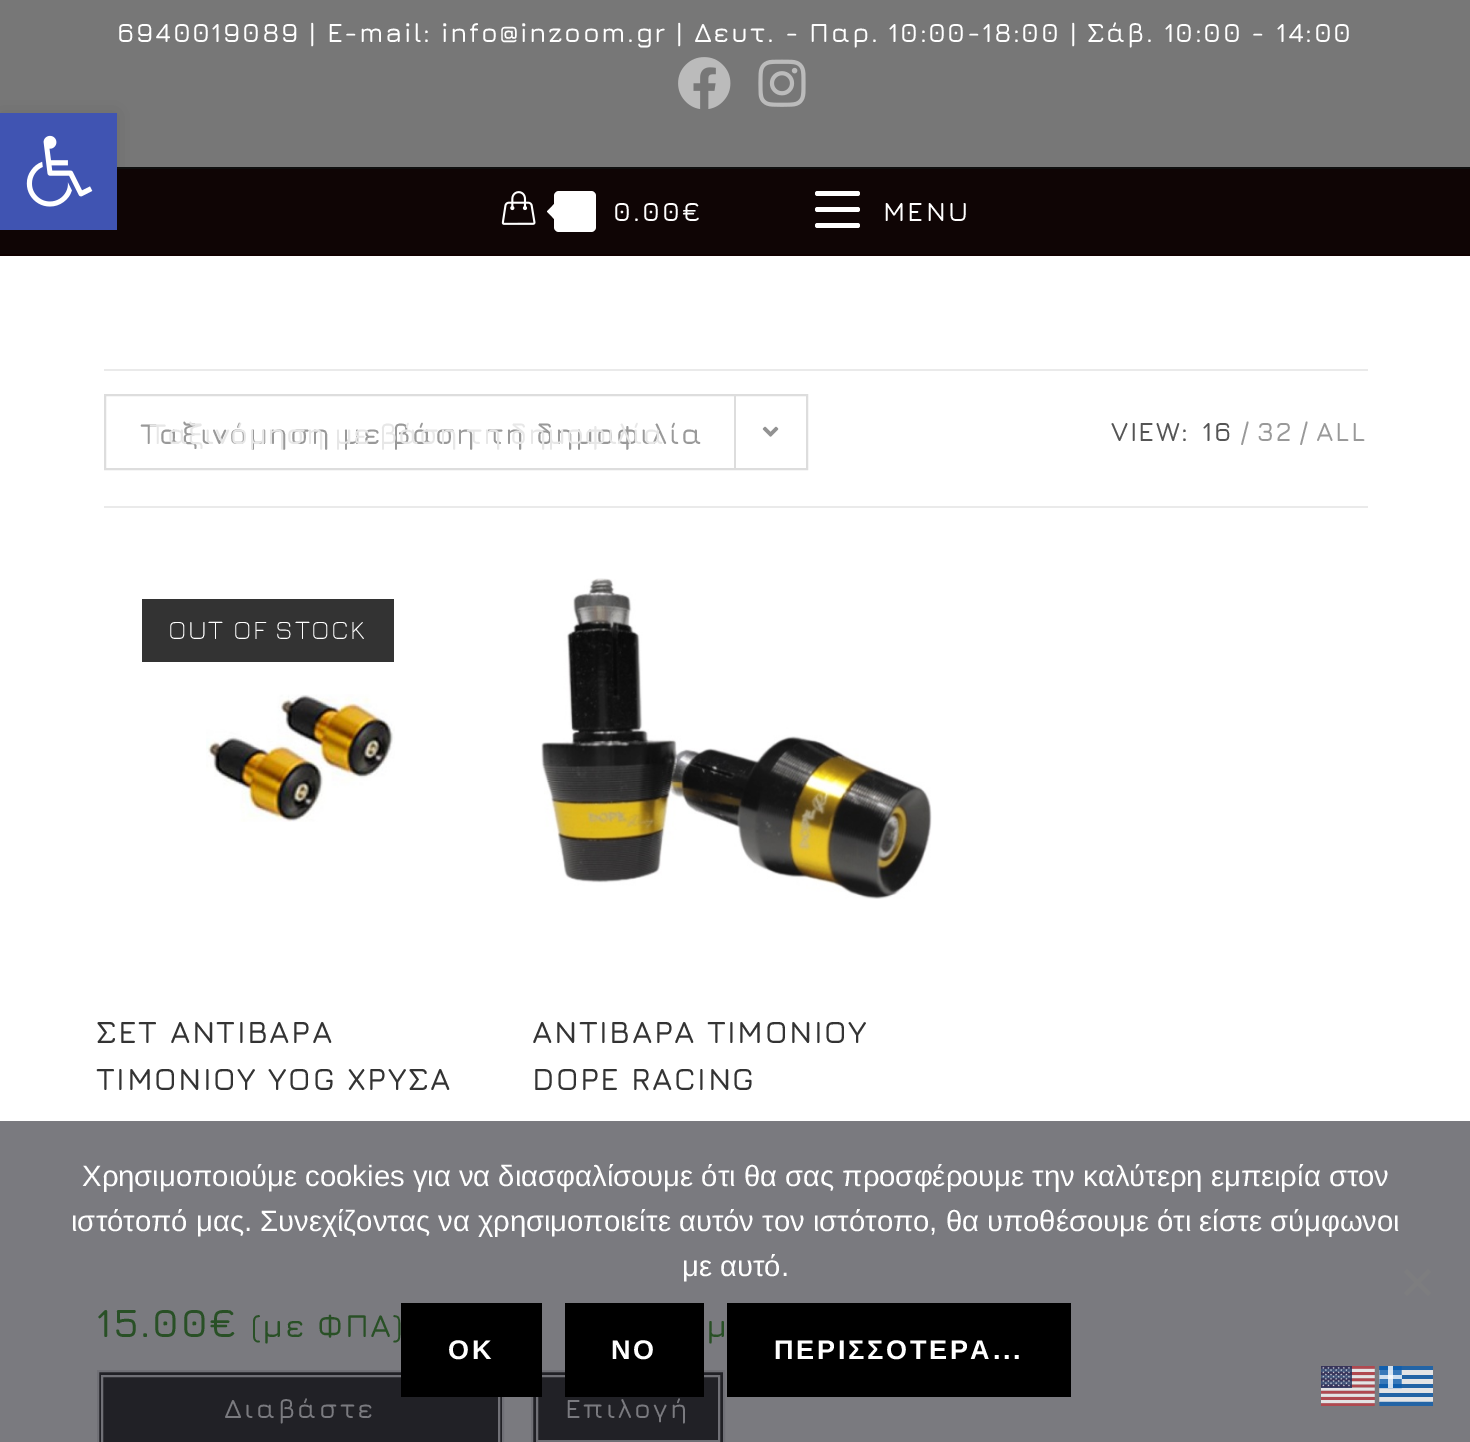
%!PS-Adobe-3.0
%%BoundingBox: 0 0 1470 1442
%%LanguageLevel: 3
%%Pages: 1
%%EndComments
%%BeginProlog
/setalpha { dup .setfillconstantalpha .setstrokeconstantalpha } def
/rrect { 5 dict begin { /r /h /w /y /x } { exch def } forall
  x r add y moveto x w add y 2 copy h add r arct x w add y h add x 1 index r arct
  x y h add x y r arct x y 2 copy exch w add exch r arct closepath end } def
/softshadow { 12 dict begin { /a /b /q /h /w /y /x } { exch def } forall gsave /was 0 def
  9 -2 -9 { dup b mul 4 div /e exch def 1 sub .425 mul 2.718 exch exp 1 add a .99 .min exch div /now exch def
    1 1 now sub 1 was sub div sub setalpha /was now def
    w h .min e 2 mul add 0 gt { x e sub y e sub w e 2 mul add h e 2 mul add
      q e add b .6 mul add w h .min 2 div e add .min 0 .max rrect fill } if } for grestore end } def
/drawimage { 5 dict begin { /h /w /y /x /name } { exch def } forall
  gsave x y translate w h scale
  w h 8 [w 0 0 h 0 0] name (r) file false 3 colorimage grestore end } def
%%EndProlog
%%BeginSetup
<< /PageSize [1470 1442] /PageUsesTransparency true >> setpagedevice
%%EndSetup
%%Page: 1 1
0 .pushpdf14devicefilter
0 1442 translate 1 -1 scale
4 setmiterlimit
1 setgray
0 0 1470 1442 rectfill
0.478 0.478 0.498 setrgbcolor
0 1121 1470 321 rectfill
0.467 setgray
0 0 1470 167 rectfill
0.059 setgray
117 167 1353 2 rectfill
0.059 0 0 setrgbcolor
0 254 1470 2 rectfill
0.059 0.02 0.02 setrgbcolor
0 169 1470 85 rectfill
0 setgray
0 113 117 117 0 11 0.1 softshadow
0.251 0.329 0.698 setrgbcolor
0 113 117 117 rectfill
(images/1.raw) 26 135 67 72 drawimage
(images/2.raw) 678 57 53 52 drawimage
(images/3.raw) 758 59 48 48 drawimage
(images/4.raw) 501 191 35 34 drawimage
1 setgray
554 191 42 41 5 rrect fill
newpath 558 200 moveto 558 223 lineto 547 211.5 lineto closepath fill
815 207 45 5 2.5 rrect fill
815 191 45 5 2.5 rrect fill
815 223 45 5 2.5 rrect fill
0.918 setgray
104 369 1264 2 rectfill
104 506 1264 2 rectfill
0.867 setgray
2 setlinewidth
105 395 702 74 rectstroke
734 396 2 72 rectfill
(images/5.raw) 762 426 17 11 drawimage
0.2 setgray
142 599 252 63 rectfill
(images/6.raw) 206 694 189 128 drawimage
0.129 0.129 0.149 setrgbcolor
newpath 98 1371 moveto 503 1371 lineto 503 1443 lineto 98 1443 lineto closepath gsave fill grestore
0.439 0.439 0.463 setrgbcolor
stroke
102 1376 397 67 rectstroke
(images/7.raw) 541 578 391 321 drawimage
0.129 0.129 0.149 setrgbcolor
newpath 532 1371 moveto 724 1371 lineto 724 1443 lineto 532 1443 lineto closepath gsave fill grestore
0.439 0.439 0.463 setrgbcolor
stroke
537 1376 182 65 rectstroke
0.49 0.49 0.498 setrgbcolor
newpath 1428 1269 moveto 1431 1272 lineto 1407 1296 lineto 1404 1293 lineto closepath fill
newpath 1404 1272 moveto 1407 1269 lineto 1431 1293 lineto 1428 1296 lineto closepath fill
0 setgray
401 1303 141 94 rectfill
565 1303 139 94 rectfill
727 1303 344 94 rectfill
(images/8.raw) 1321 1366 54 40 drawimage
(images/9.raw) 1379 1366 54 40 drawimage
/Jura-SemiBold [27 0 0 -27 0 0] selectfont
1 setgray
117 42 moveto 1.57 0 (6940019089 | E-mail: info@inzoom.gr | Δευτ. - Παρ. 10:00-18:00 | Σάβ. 10:00 - 14:00) ashow
613 221 moveto 2.25 0 (0.00€) ashow
883 221 moveto 2.25 0 (MENU) ashow
/Jura-SemiBold [29.25 0 0 -29.25 0 0] selectfont
0.6 setgray
140 444 moveto 1.57 0 (Ταξινόμηση με βάση τη δημοφιλία) ashow
0.906 setgray
149 444 moveto (Ταξινόμηση με βάση τη δημοφιλία) show
/Jura-SemiBold [27 0 0 -27 0 0] selectfont
0.333 setgray
1111 441 moveto 1.5 0 (VIEW:) ashow
1202 441 moveto 1.57 0 (16) ashow
0.6 setgray
1240 441 moveto 1.57 0 (/) ashow
1257 441 moveto 1.57 0 (32) ashow
1299 441 moveto 1.57 0 (/) ashow
1316 441 moveto 1.57 0 (ALL) ashow
/Jura-Light [27 0 0 -27 0 0] selectfont
1 setgray
168 639 moveto 1.57 0 (OUT OF STOCK) ashow
/Jura-SemiBold [31.5 0 0 -31.5 0 0] selectfont
0.2 setgray
96 1043 moveto 1.57 0 (ΣΕΤ ΑΝΤΙΒΑΡΑ) ashow
96 1090 moveto 1.57 0 (ΤΙΜΟΝΙΟΥ YOG ΧΡΥΣΑ) ashow
/Jura-SemiBold [40.5 0 0 -40.5 0 0] selectfont
0.161 0.314 0.149 setrgbcolor
96 1337 moveto 1.57 0 (15.00€) ashow
/Jura-SemiBold [32.5 0 0 -32.5 0 0] selectfont
251 1337 moveto 1.57 0 (\(με ΦΠΑ\)) ashow
/Jura-SemiBold [27 0 0 -27 0 0] selectfont
0.478 0.478 0.498 setrgbcolor
224 1418 moveto 2.25 0 (Διαβάστε) ashow
/Jura-SemiBold [31.5 0 0 -31.5 0 0] selectfont
0.2 setgray
532 1043 moveto 1.57 0 (ΑΝΤΙΒΑΡΑ ΤΙΜOΝΙΟΥ) ashow
532 1090 moveto 1.57 0 (DOPE RACING) ashow
/Jura-SemiBold [32.5 0 0 -32.5 0 0] selectfont
0.161 0.314 0.149 setrgbcolor
706 1337 moveto 1.57 0 (μ) ashow
/Jura-SemiBold [27 0 0 -27 0 0] selectfont
0.478 0.478 0.498 setrgbcolor
565 1418 moveto 2.25 0 (Επιλογή) ashow
/LiberationSans-Regular [29.25 0 0 -29.25 0 0] selectfont
1 setgray
82 1186 moveto (Χρησιμοποιούμε cookies για να διασφαλίσουμε ότι θα σας προσφέρουμε την καλύτερη εμπειρία στον) show
71 1231 moveto (ιστότοπό μας. Συνεχίζοντας να χρησιμοποιείτε αυτόν τον ιστότοπο, θα υποθέσουμε ότι είστε σύμφωνοι) show
682 1276 moveto (με αυτό.) show
/LiberationSans-Bold [27 0 0 -27 0 0] selectfont
448 1359 moveto 2.75 0 (OK) ashow
611 1359 moveto 2.75 0 (NO) ashow
774 1359 moveto 2.75 0 (ΠΕΡΙΣΣΟΤΕΡΑ...) ashow
.poppdf14devicefilter showpage
%%EOF
